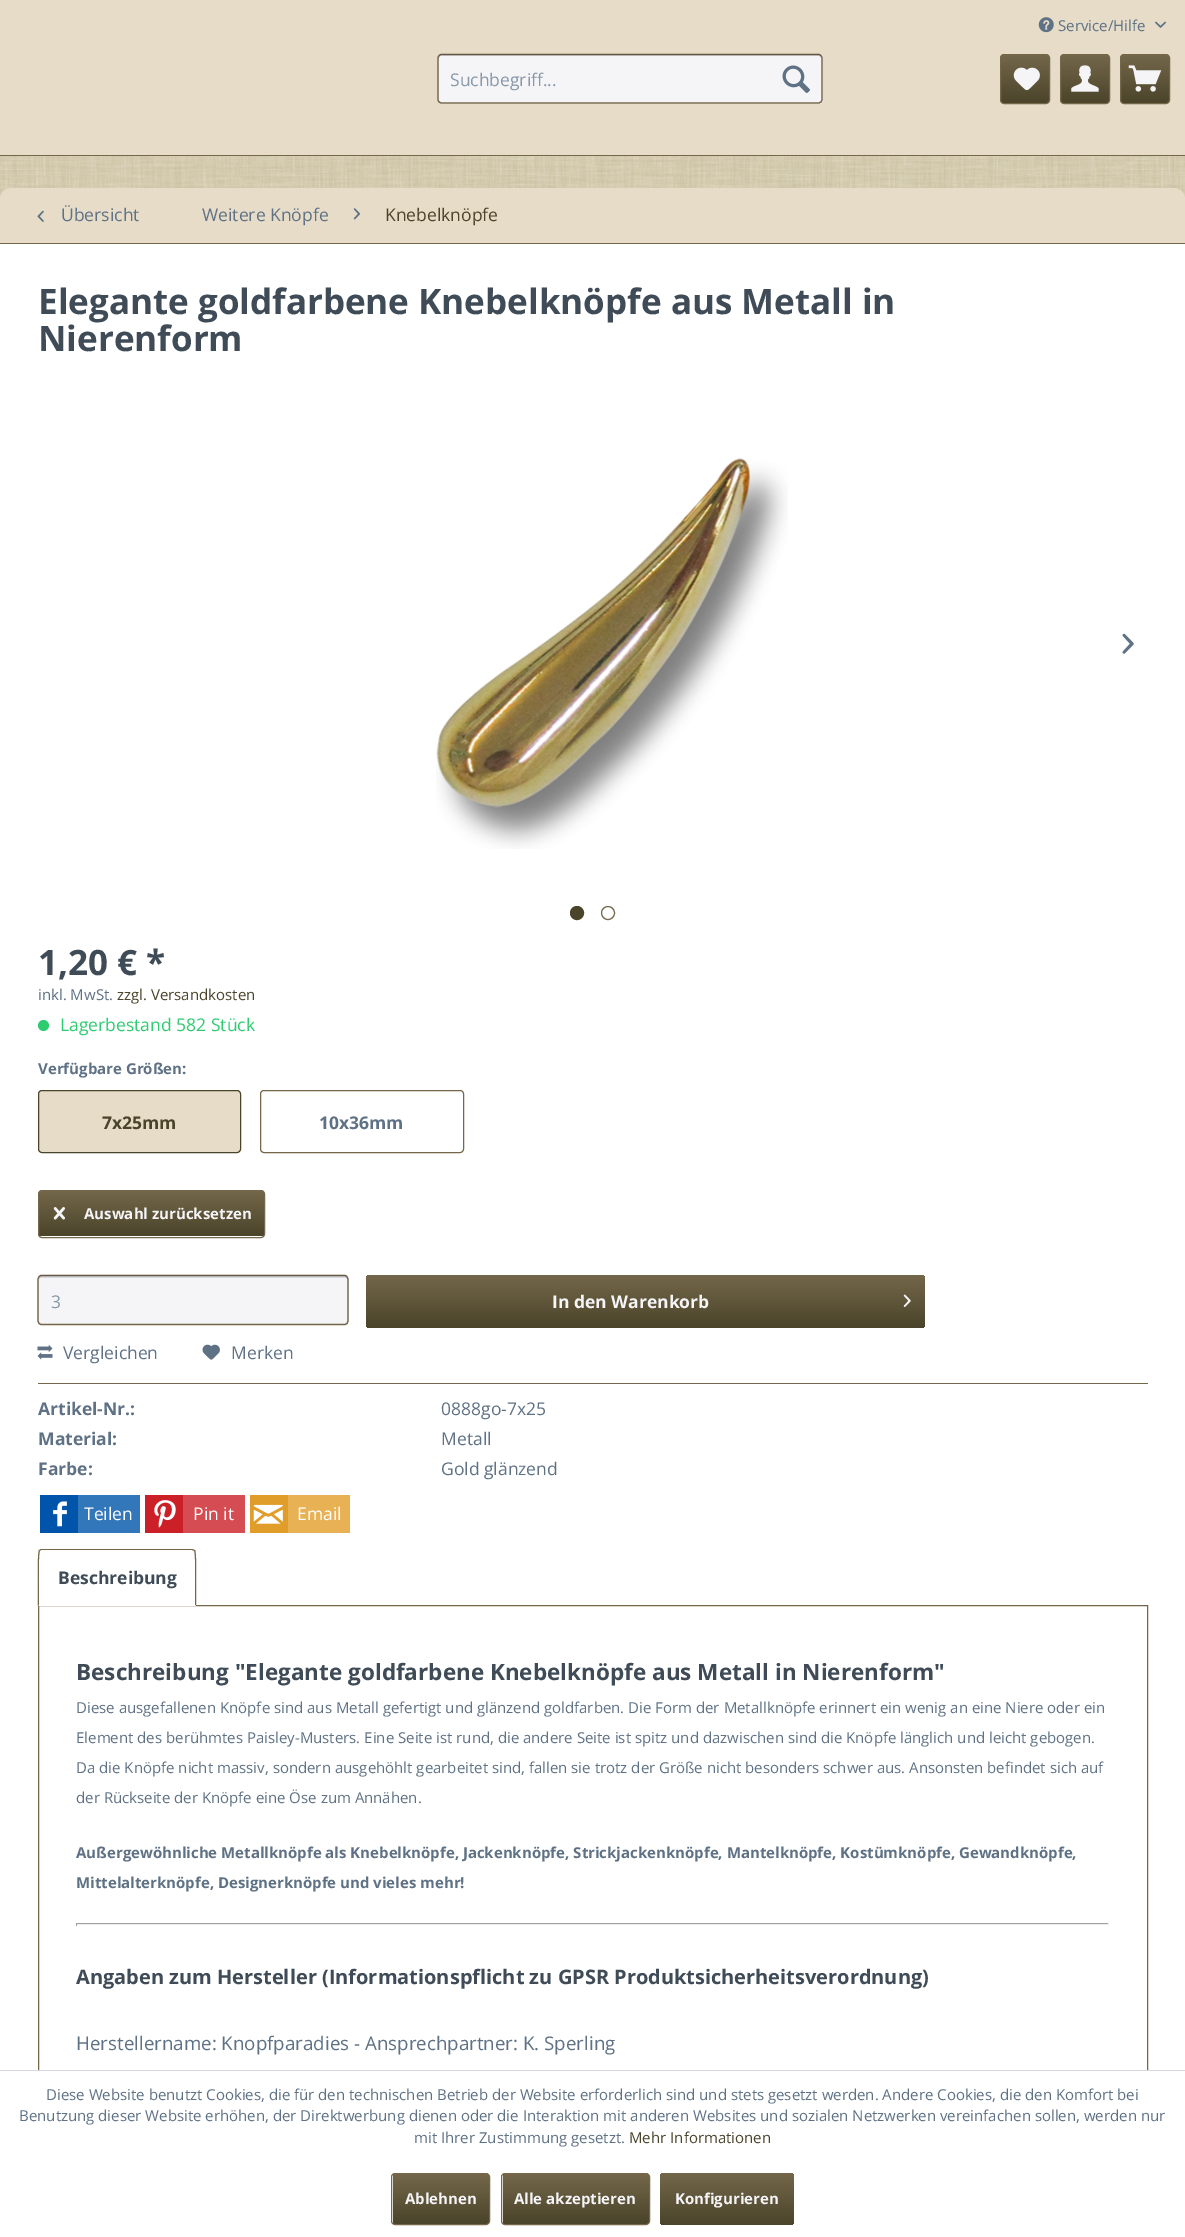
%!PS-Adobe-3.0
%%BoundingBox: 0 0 1185 2237
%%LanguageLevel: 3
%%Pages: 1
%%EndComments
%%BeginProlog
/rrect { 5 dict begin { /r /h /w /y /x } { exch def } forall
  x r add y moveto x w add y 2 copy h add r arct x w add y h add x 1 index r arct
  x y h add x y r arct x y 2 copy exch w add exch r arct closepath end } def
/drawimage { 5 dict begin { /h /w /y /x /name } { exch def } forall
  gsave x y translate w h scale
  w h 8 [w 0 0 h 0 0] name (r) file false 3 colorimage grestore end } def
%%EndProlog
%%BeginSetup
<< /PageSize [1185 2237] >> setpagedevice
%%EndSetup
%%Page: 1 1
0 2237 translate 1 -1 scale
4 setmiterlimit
1 setgray
0 0 1185 2237 rectfill
(images/1.raw) 0 156 1185 43 drawimage
0.902 0.863 0.784 setrgbcolor
0 0 1185 155 rectfill
0.455 0.404 0.29 setrgbcolor
0 155 1185 1 rectfill
(images/2.raw) 1038 17 16 16 drawimage
(images/3.raw) 1155 21 11 7 drawimage
0.961 0.961 0.973 setrgbcolor
438 54 385 50 4 rrect fill
0.843 0.843 0.89 setrgbcolor
newpath 441 56 moveto 819 56 lineto 820 56 821 57 821 59 curveto 821 56 lineto 819 55 lineto 442 55 lineto 439 55 439 57 439 59 curveto 439 57 440 56 441 56 curveto closepath fill
0.392 0.349 0.251 setrgbcolor
1.2 setlinewidth
newpath 439 55.5 moveto 441 54.5 lineto 819 54.5 lineto 821 55.5 lineto stroke
0.455 0.404 0.29 setrgbcolor
newpath 821 55.5 moveto 822 57.5 lineto 822 100 lineto 821 102 lineto 819 103 lineto 441 103 lineto 439 102 lineto 438 100 lineto 438 57.5 lineto 439 55.5 lineto stroke
(images/4.raw) 782 65 28 28 drawimage
gsave 1001 55 48 48 2.5 rrect clip newpath
<< /ShadingType 2 /ColorSpace /DeviceRGB /Coords [1025 55 1025 103] /Extend [true true] /Function << /FunctionType 2 /Domain [0 1] /C0 [0.455 0.404 0.29] /C1 [0.29 0.267 0.165] /N 1 >> >> shfill grestore
1 setlinewidth
1000.5 54.5 49 49 3.5 rrect stroke
(images/5.raw) 1013 67 27 24 drawimage
gsave 1061 55 48 48 2.5 rrect clip newpath
<< /ShadingType 2 /ColorSpace /DeviceRGB /Coords [1085 55 1085 103] /Extend [true true] /Function << /FunctionType 2 /Domain [0 1] /C0 [0.455 0.404 0.29] /C1 [0.29 0.267 0.165] /N 1 >> >> shfill grestore
1060.5 54.5 49 49 3.5 rrect stroke
(images/6.raw) 1071 65 28 27 drawimage
gsave 1121 55 48 48 2.5 rrect clip newpath
<< /ShadingType 2 /ColorSpace /DeviceRGB /Coords [1145 55 1145 103] /Extend [true true] /Function << /FunctionType 2 /Domain [0 1] /C0 [0.455 0.404 0.29] /C1 [0.29 0.267 0.165] /N 1 >> >> shfill grestore
1120.5 54.5 49 49 3.5 rrect stroke
(images/7.raw) 1128 65 34 27 drawimage
0.902 0.863 0.784 setrgbcolor
0 188 1185 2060 11 rrect fill
0.455 0.404 0.29 setrgbcolor
0 243 1185 1 rectfill
(images/8.raw) 37 210 7 12 drawimage
(images/9.raw) 353 208 7 12 drawimage
1 setgray
0 244 1185 1826 rectfill
(images/10.raw) 436 457 352 392 drawimage
(images/11.raw) 1122 633 12 21 drawimage
0.29 0.267 0.165 setrgbcolor
newpath 577 913 6.5 0 360 arc closepath gsave fill grestore
stroke
0.455 0.404 0.29 setrgbcolor
newpath 608 913 6.5 0 360 arc closepath stroke
0.18 0.8 0.443 setrgbcolor
newpath 43.5 1025.5 5.5 0 360 arc closepath fill
0.902 0.863 0.784 setrgbcolor
38.5 1090.5 202 62 3.5 rrect gsave fill grestore
0.29 0.267 0.165 setrgbcolor
stroke
0.455 0.404 0.29 setrgbcolor
260.5 1090.5 203 62 3.5 rrect stroke
gsave 39 1191 225 45 2.5 rrect clip newpath
<< /ShadingType 2 /ColorSpace /DeviceRGB /Coords [151 1191 151 1236] /Extend [true true] /Function << /FunctionType 2 /Domain [0 1] /C0 [0.455 0.404 0.29] /C1 [0.29 0.267 0.165] /N 1 >> >> shfill grestore
38.5 1190.5 226 47 3.5 rrect stroke
(images/12.raw) 53 1207 12 13 drawimage
0.961 0.961 0.973 setrgbcolor
38 1275 311 50 4 rrect fill
0.843 0.843 0.89 setrgbcolor
newpath 41 1278 moveto 345 1278 lineto 346 1278 348 1279 348 1280 curveto 348 1278 lineto 348 1277 347 1276 346 1276 curveto 42 1276 lineto 40 1276 39 1277 39 1278 curveto 39 1280 lineto 39 1279 40 1278 41 1278 curveto closepath fill
0.392 0.349 0.251 setrgbcolor
1.2 setlinewidth
newpath 39 1276.5 moveto 41 1275.5 lineto 345 1275.5 lineto 347 1276.5 lineto stroke
0.455 0.404 0.29 setrgbcolor
newpath 347 1276.5 moveto 348 1279 lineto 348 1321 lineto 347 1323.5 lineto 345 1324.5 lineto 41 1324.5 lineto 39 1323.5 lineto 38 1321 lineto 38 1279 lineto 39 1276.5 lineto stroke
gsave 366 1275 559 53 4 rrect clip newpath
<< /ShadingType 2 /ColorSpace /DeviceRGB /Coords [646 1275 646 1328] /Extend [true true] /Function << /FunctionType 2 /Domain [0 1] /C0 [0.455 0.404 0.29] /C1 [0.29 0.267 0.165] /N 1 >> >> shfill grestore
(images/13.raw) 903 1294 8 13 drawimage
38 1383 1110 1 rectfill
(images/14.raw) 37 1344 16 16 drawimage
(images/15.raw) 202 1344 18 16 drawimage
0.2 0.467 0.733 setrgbcolor
78 1495 62 38 rectfill
0 0.333 0.667 setrgbcolor
40 1495 38 38 rectfill
(images/16.raw) 53 1501 14 26 drawimage
0.835 0.302 0.322 setrgbcolor
183 1495 62 38 rectfill
0.796 0.125 0.153 setrgbcolor
145 1495 38 38 rectfill
(images/17.raw) 154 1500 22 28 drawimage
0.906 0.694 0.329 setrgbcolor
288 1495 62 38 rectfill
0.882 0.616 0.161 setrgbcolor
250 1495 38 38 rectfill
(images/18.raw) 253 1504 30 20 drawimage
0.455 0.404 0.29 setrgbcolor
1 setlinewidth
38.5 1605.5 1109 613 rectstroke
1 setgray
newpath 42 1549 moveto 192 1549 lineto 194 1549 196 1551 196 1553 curveto 196 1606 lineto 38 1606 lineto 38 1553 lineto 38 1551 40 1549 42 1549 curveto closepath fill
0.455 0.404 0.29 setrgbcolor
newpath 41 1549 moveto 39 1550 lineto 40 1551 lineto 41 1550 lineto 192 1550 lineto 194 1551 lineto 195 1550 lineto 192 1549 lineto closepath fill
newpath 196 1606 moveto 196 1600 197 1551 195 1550 curveto 194 1551 lineto 196 1552 195 1599 195 1605 curveto closepath fill
1 setgray
newpath 196 1606 moveto 195 1605 lineto 39 1605 lineto 38 1606 lineto closepath fill
0.455 0.404 0.29 setrgbcolor
newpath 39 1550 moveto 37 1552 38 1599 38 1606 curveto 39 1605 lineto 39 1599 38 1552 40 1551 curveto closepath fill
0.624 setgray
76 1923 1033 1 rectfill
0.933 setgray
1108 1923 1 3 rectfill
76 1924 1033 1 rectfill
0.624 setgray
76 1923 1 3 rectfill
1 setgray
0 2071 1185 166 rectfill
0.843 0.843 0.89 setrgbcolor
0 2070 1185 1 rectfill
gsave 393 2174 96 50 2.5 rrect clip newpath
<< /ShadingType 2 /ColorSpace /DeviceRGB /Coords [441 2174 441 2224] /Extend [true true] /Function << /FunctionType 2 /Domain [0 1] /C0 [0.455 0.404 0.29] /C1 [0.29 0.267 0.165] /N 1 >> >> shfill grestore
0.455 0.404 0.29 setrgbcolor
391.5 2173.5 98 51 3.5 rrect stroke
gsave 503 2174 146 50 2.5 rrect clip newpath
<< /ShadingType 2 /ColorSpace /DeviceRGB /Coords [576 2174 576 2224] /Extend [true true] /Function << /FunctionType 2 /Domain [0 1] /C0 [0.455 0.404 0.29] /C1 [0.29 0.267 0.165] /N 1 >> >> shfill grestore
501.5 2173.5 148 51 3.5 rrect stroke
gsave 660 2173 134 52 4 rrect clip newpath
<< /ShadingType 2 /ColorSpace /DeviceRGB /Coords [727 2173 727 2225] /Extend [true true] /Function << /FunctionType 2 /Domain [0 1] /C0 [0.455 0.404 0.29] /C1 [0.29 0.267 0.165] /N 1 >> >> shfill grestore
/OpenSans-Regular [15 0 0 -15 0 0] selectfont
0.373 0.447 0.522 setrgbcolor
1058 31 moveto (Service/Hilfe) show
/OpenSans-Regular [17.5 0 0 -17.5 0 0] selectfont
0.529 0.596 0.663 setrgbcolor
450 86 moveto (Suchbegriff...) show
0.373 0.447 0.522 setrgbcolor
61 221 moveto (Übersicht) show
202 221 moveto (Weitere Knöpfe) show
0.29 0.267 0.165 setrgbcolor
385 221 moveto (Knebelknöpfe) show
/OpenSans-Bold [35 0 0 -35 0 0] selectfont
0.247 0.298 0.345 setrgbcolor
38 314 moveto (Elegante goldfarbene Knebelknöpfe aus Metall in) show
38 351 moveto (Nierenform) show
38 975 moveto (1,20 € *) show
/OpenSans-Regular [15 0 0 -15 0 0] selectfont
0.373 0.447 0.522 setrgbcolor
38 1000 moveto (inkl. MwSt.) show
0.29 0.267 0.165 setrgbcolor
117 1000 moveto (zzgl. Versandkosten) show
/OpenSans-Regular [17.5 0 0 -17.5 0 0] selectfont
0.18 0.8 0.443 setrgbcolor
60 1031 moveto (Lagerbestand 582 Stück) show
/OpenSans-Bold [15 0 0 -15 0 0] selectfont
0.373 0.447 0.522 setrgbcolor
38 1074 moveto (Verfügbare Größen:) show
/OpenSans-Bold [17.5 0 0 -17.5 0 0] selectfont
0.29 0.267 0.165 setrgbcolor
102 1129 moveto (7x25mm) show
0.373 0.447 0.522 setrgbcolor
319 1129 moveto (10x36mm) show
/OpenSans-Bold [15 0 0 -15 0 0] selectfont
0.961 0.961 0.973 setrgbcolor
84 1219 moveto (Auswahl zurücksetzen) show
/OpenSans-Regular [17.5 0 0 -17.5 0 0] selectfont
0.529 0.596 0.663 setrgbcolor
51 1308 moveto (3) show
/OpenSans-Bold [17.5 0 0 -17.5 0 0] selectfont
0.961 0.961 0.973 setrgbcolor
552 1308 moveto (In den Warenkorb) show
/OpenSans-Regular [17.5 0 0 -17.5 0 0] selectfont
0.373 0.447 0.522 setrgbcolor
63 1359 moveto (Vergleichen) show
231 1359 moveto (Merken) show
/OpenSans-Bold [17.5 0 0 -17.5 0 0] selectfont
38 1415 moveto (Artikel-Nr.:) show
/OpenSans-Regular [17.5 0 0 -17.5 0 0] selectfont
441 1415 moveto (0888go-7x25) show
/OpenSans-Bold [17.5 0 0 -17.5 0 0] selectfont
38 1445 moveto (Material:) show
/OpenSans-Regular [17.5 0 0 -17.5 0 0] selectfont
441 1445 moveto (Metall) show
/OpenSans-Bold [17.5 0 0 -17.5 0 0] selectfont
38 1475 moveto (Farbe:) show
/OpenSans-Regular [17.5 0 0 -17.5 0 0] selectfont
441 1475 moveto (Gold glänzend) show
1 setgray
84 1520 moveto (Teilen) show
193 1520 moveto (Pin it) show
297 1520 moveto (Email) show
/OpenSans-Bold [17.5 0 0 -17.5 0 0] selectfont
0.247 0.298 0.345 setrgbcolor
58 1584 moveto (Beschreibung) show
/OpenSans-Bold [22.5 0 0 -22.5 0 0] selectfont
76 1680 moveto (Beschreibung "Elegante goldfarbene Knebelknöpfe aus Metall in Nierenform") show
/OpenSans-Regular [15 0 0 -15 0 0] selectfont
0.373 0.447 0.522 setrgbcolor
76 1713 moveto (Diese ausgefallenen Knöpfe sind aus Metall gefertigt und glänzend goldfarben. Die Form der Metallknöpfe erinnert ein wenig an eine Niere oder ein) show
76 1743 moveto (Element des berühmtes Paisley-Musters. Eine Seite ist rund, die andere Seite ist spitz und dazwischen sind die Knöpfe länglich und leicht gebogen.) show
76 1773 moveto (Da die Knöpfe nicht massiv, sondern ausgehöhlt gearbeitet sind, fallen sie trotz der Größe nicht besonders schwer aus. Ansonsten befindet sich auf) show
76 1803 moveto (der Rückseite der Knöpfe eine Öse zum Annähen.) show
/OpenSans-Bold [15 0 0 -15 0 0] selectfont
76 1858 moveto (Außergewöhnliche Metallknöpfe als Knebelknöpfe, Jackenknöpfe, Strickjackenknöpfe, Mantelknöpfe, Kostümknöpfe, Gewandknöpfe,) show
76 1888 moveto (Mittelalterknöpfe, Designerknöpfe und vieles mehr!) show
/OpenSans-Bold [20 0 0 -20 0 0] selectfont
0.247 0.298 0.345 setrgbcolor
76 1984 moveto (Angaben zum Hersteller \(Informationspflicht zu GPSR Produktsicherheitsverordnung\)) show
/OpenSans-Regular [18.75 0 0 -18.75 0 0] selectfont
0.373 0.447 0.522 setrgbcolor
76 2050 moveto (Herstellername: Knopfparadies - Ansprechpartner: K. Sperling) show
/OpenSans-Regular [15 0 0 -15 0 0] selectfont
46 2100 moveto (Diese Website benutzt Cookies, die für den technischen Betrieb der Website erforderlich sind und stets gesetzt werden. Andere Cookies, die den Komfort bei) show
19 2121 moveto (Benutzung dieser Website erhöhen, der Direktwerbung dienen oder die Interaktion mit anderen Websites und sozialen Netzwerken vereinfachen sollen, werden nur) show
414 2143 moveto (mit Ihrer Zustimmung gesetzt.) show
0.29 0.267 0.165 setrgbcolor
629 2143 moveto (Mehr Informationen) show
/OpenSans-Bold [15 0 0 -15 0 0] selectfont
0.961 0.961 0.973 setrgbcolor
405 2204 moveto (Ablehnen) show
514 2204 moveto (Alle akzeptieren) show
675 2204 moveto (Konfigurieren) show
showpage
%%EOF
